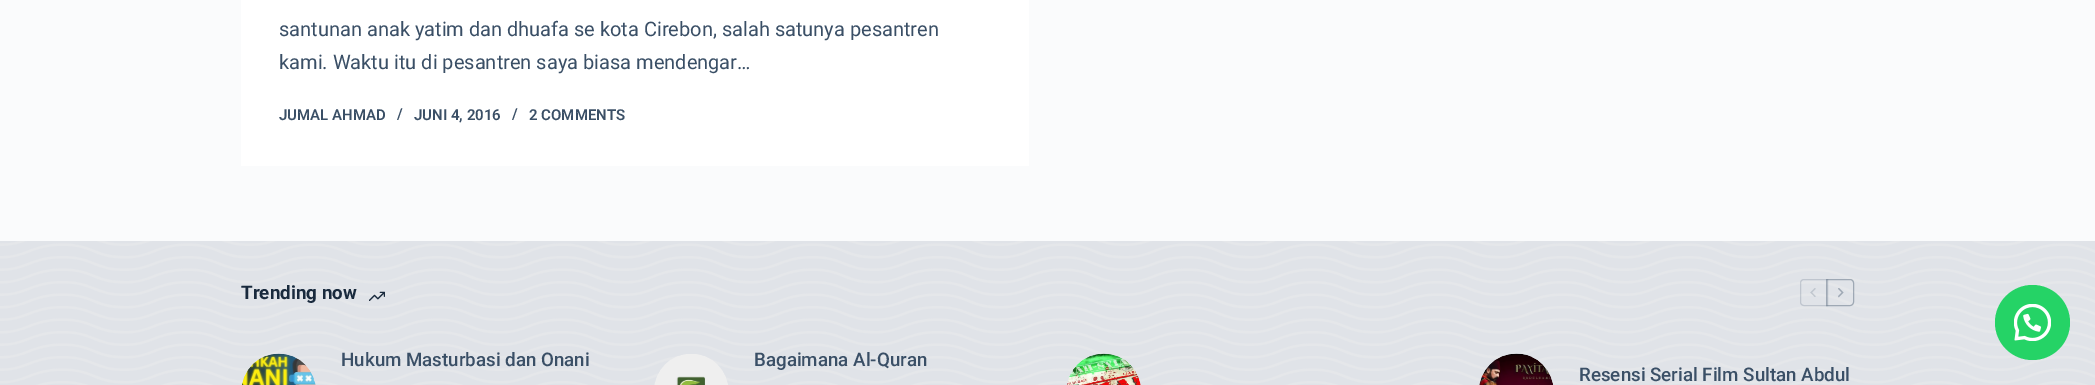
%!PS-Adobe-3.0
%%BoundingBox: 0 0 2095 385
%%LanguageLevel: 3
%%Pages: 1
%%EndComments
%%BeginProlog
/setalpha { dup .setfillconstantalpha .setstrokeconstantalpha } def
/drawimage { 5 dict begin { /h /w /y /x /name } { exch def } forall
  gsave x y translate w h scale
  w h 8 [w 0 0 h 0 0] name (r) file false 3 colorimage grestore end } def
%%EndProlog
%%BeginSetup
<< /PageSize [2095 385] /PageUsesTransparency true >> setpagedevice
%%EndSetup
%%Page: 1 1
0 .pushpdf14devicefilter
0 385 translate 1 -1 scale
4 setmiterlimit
0.98 0.984 0.988 setrgbcolor
0 0 2095 385 rectfill
1 setgray
241 0 788 166 rectfill
0.878 0.89 0.91 setrgbcolor
0 241 2095 144 rectfill
(images/1.raw) 0 241 2095 144 drawimage
(images/2.raw) 369 291 16 10 drawimage
0.2 setalpha
0.227 0.31 0.4 setrgbcolor
newpath 1804 279.5 moveto 1827.5 279.5 lineto 1827.5 305.5 lineto 1804 305.5 lineto 1802 305.5 1800.5 304 1800.5 302 curveto 1800.5 283 lineto 1800.5 281 1802 279.5 1804 279.5 curveto closepath stroke
1 setalpha
(images/3.raw) 1810 288 6 9 drawimage
0.4 setalpha
newpath 1826.5 279.5 moveto 1850 279.5 lineto 1852 279.5 1853.5 281 1853.5 283 curveto 1853.5 302 lineto 1853.5 304 1852 305.5 1850 305.5 curveto 1826.5 305.5 lineto closepath stroke
1 setalpha
(images/4.raw) 1838 288 6 10 drawimage
(images/5.raw) 242 353 74 32 drawimage
(images/6.raw) 654 354 74 31 drawimage
(images/7.raw) 1067 353 74 32 drawimage
(images/8.raw) 1479 353 74 32 drawimage
0.145 0.827 0.4 setrgbcolor
newpath 2032.5 322.5 37.5 0 360 arc closepath fill
(images/9.raw) 2014 304 37 37 drawimage
/Roboto-Regular [20 0 0 -20 0 0] selectfont
0.227 0.31 0.4 setrgbcolor
279 36 moveto (santunan anak yatim dan dhuafa se kota Cirebon, salah satunya pesantren) show
279 69 moveto (kami. Waktu itu di pesantren saya biasa mendengar…) show
/Roboto-SemiBold [15 0 0 -15 0 0] selectfont
279 120 moveto (JUMAL AHMAD) show
397 119 moveto (/) show
414 120 moveto (JUNI 4, 2016) show
512 119 moveto (/) show
529 120 moveto (2 COMMENTS) show
/Roboto-Bold [18.75 0 0 -18.75 0 0] selectfont
0.098 0.165 0.239 setrgbcolor
241 299 moveto (Trending now) show
/Roboto-Medium [18.75 0 0 -18.75 0 0] selectfont
0.227 0.31 0.4 setrgbcolor
341 366 moveto (Hukum Masturbasi dan Onani) show
754 366 moveto (Bagaimana Al-Quran) show
1579 381 moveto (Resensi Serial Film Sultan Abdul) show
.poppdf14devicefilter showpage
%%EOF
